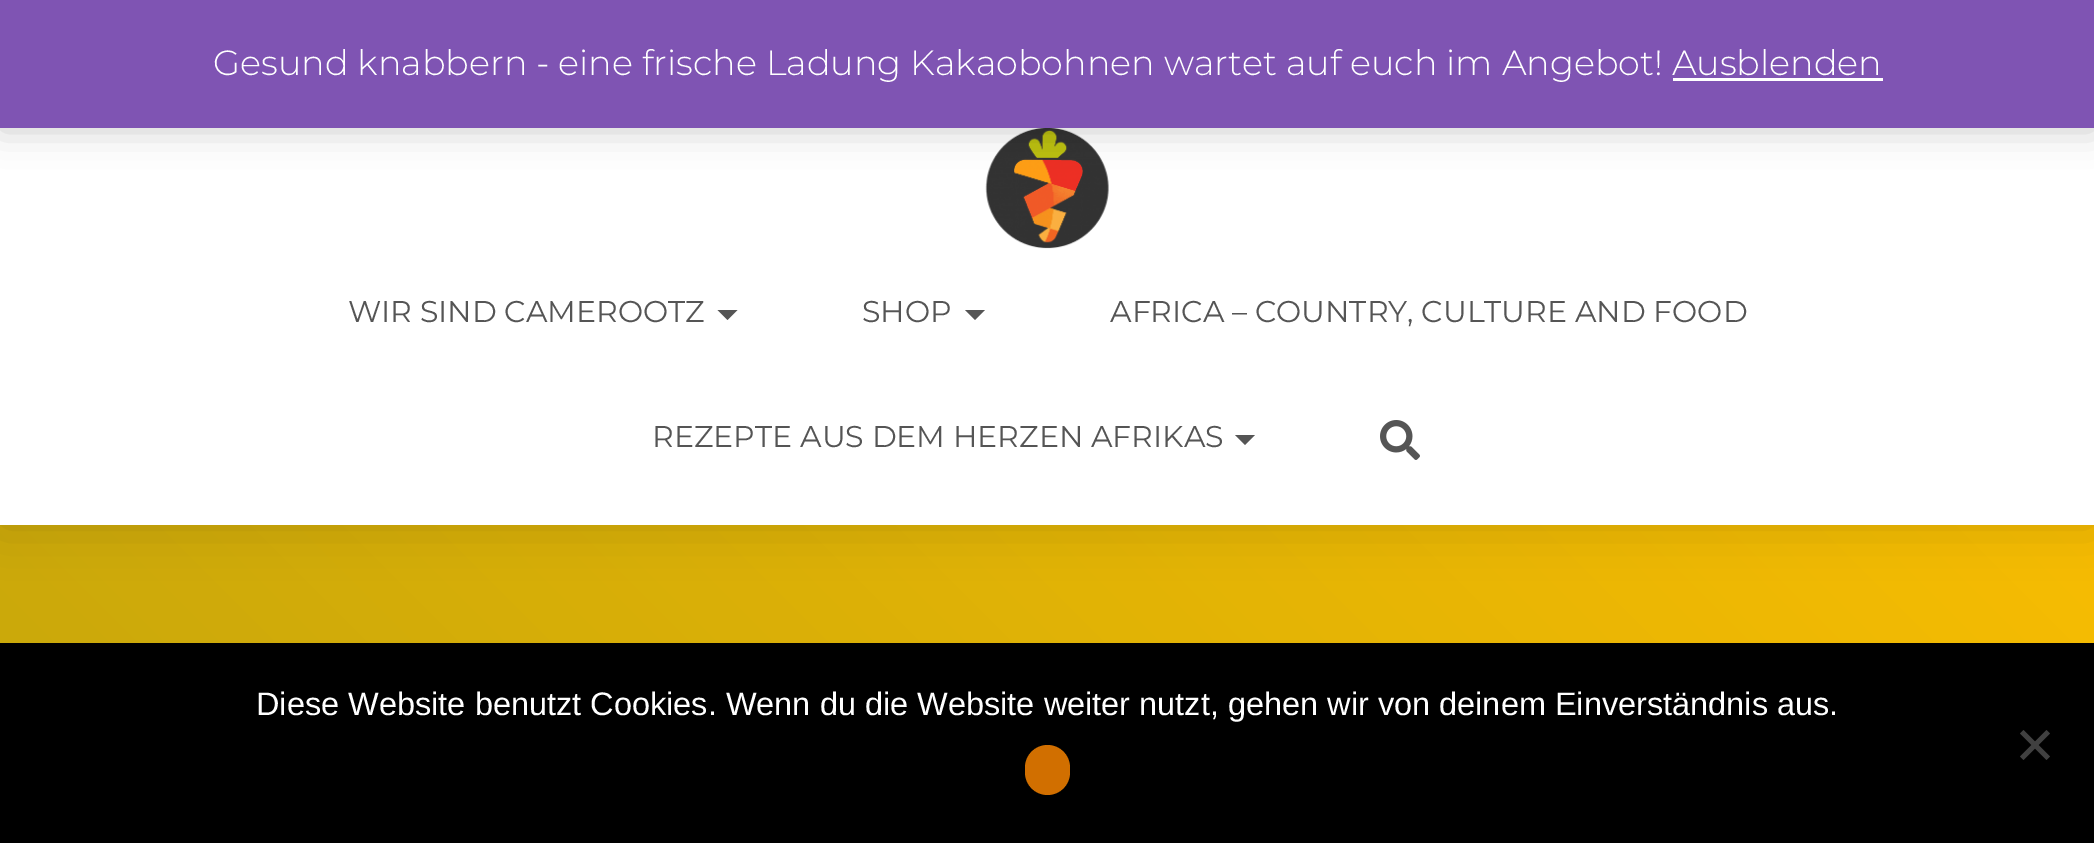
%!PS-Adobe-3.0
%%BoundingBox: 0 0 2094 843
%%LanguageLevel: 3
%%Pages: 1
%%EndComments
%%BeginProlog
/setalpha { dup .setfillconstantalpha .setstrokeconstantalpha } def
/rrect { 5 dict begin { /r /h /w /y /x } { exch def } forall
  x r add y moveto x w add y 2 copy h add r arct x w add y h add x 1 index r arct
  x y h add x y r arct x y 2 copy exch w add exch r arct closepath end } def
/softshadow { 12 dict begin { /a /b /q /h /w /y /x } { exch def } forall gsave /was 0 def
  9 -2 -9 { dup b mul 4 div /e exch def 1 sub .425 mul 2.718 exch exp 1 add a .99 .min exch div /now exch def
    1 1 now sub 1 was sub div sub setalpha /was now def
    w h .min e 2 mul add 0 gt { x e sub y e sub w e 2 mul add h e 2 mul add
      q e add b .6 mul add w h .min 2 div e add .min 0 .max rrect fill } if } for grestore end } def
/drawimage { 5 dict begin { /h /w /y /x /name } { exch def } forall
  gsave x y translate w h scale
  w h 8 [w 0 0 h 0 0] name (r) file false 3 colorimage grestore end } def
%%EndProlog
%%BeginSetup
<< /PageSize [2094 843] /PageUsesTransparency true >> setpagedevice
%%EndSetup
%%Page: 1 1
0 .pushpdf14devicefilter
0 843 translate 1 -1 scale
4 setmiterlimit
1 setgray
0 0 2094 843 rectfill
gsave newpath 0 525 moveto 2094 525 lineto 2094 643 lineto 0 643 lineto closepath clip newpath
<< /ShadingType 2 /ColorSpace /DeviceRGB /Coords [242 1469 1853 -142] /Extend [true true] /Function << /FunctionType 2 /Domain [0 1] /C0 [0.749 0.643 0.051] /C1 [1 0.753 0] /N 1 >> >> shfill grestore
0 setgray
0 100 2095 425 0 25 0.15 softshadow
1 setgray
0 128 2094 397 rectfill
(images/1.raw) 985 128 124 121 drawimage
0 setgray
0 3 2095 127 0 17.5 0.2 softshadow
0.498 0.329 0.702 setrgbcolor
0 0 2094 128 rectfill
1 setgray
1673 78 210 3 rectfill
0.333 setgray
newpath 717.5 310 moveto 737.5 310 lineto 727.5 320 lineto closepath fill
newpath 965 310 moveto 985 310 lineto 975 320 lineto closepath fill
newpath 1235 435 moveto 1255 435 lineto 1245 445 lineto closepath fill
(images/2.raw) 1380 420 40 40 drawimage
0 setgray
0 643 2094 200 rectfill
0.82 0.435 0 setrgbcolor
1025 745 45 50 22.5 rrect fill
0.251 setgray
newpath 2046.5 730 moveto 2050 733.5 lineto 2023.5 760 lineto 2020 756.5 lineto closepath fill
newpath 2020 733.5 moveto 2023.5 730 lineto 2050 756.5 lineto 2046.5 760 lineto closepath fill
/Montserrat-Light [35 0 0 -35 0 0] selectfont
1 setgray
213 75 moveto (Gesund knabbern - eine frische Ladung Kakaobohnen wartet auf euch im Angebot! Ausblenden) show
/Montserrat-Regular [30 0 0 -30 0 0] selectfont
0.333 setgray
348 322 moveto (WIR SIND CAMEROOTZ) show
862 322 moveto (SHOP) show
1110 322 moveto (AFRICA – COUNTRY, CULTURE AND FOOD) show
652 447 moveto (REZEPTE AUS DEM HERZEN AFRIKAS) show
/LiberationSans-Regular [32.5 0 0 -32.5 0 0] selectfont
1 setgray
256 715 moveto (Diese Website benutzt Cookies. Wenn du die Website weiter nutzt, gehen wir von deinem Einverständnis aus.) show
.poppdf14devicefilter showpage
%%EOF
